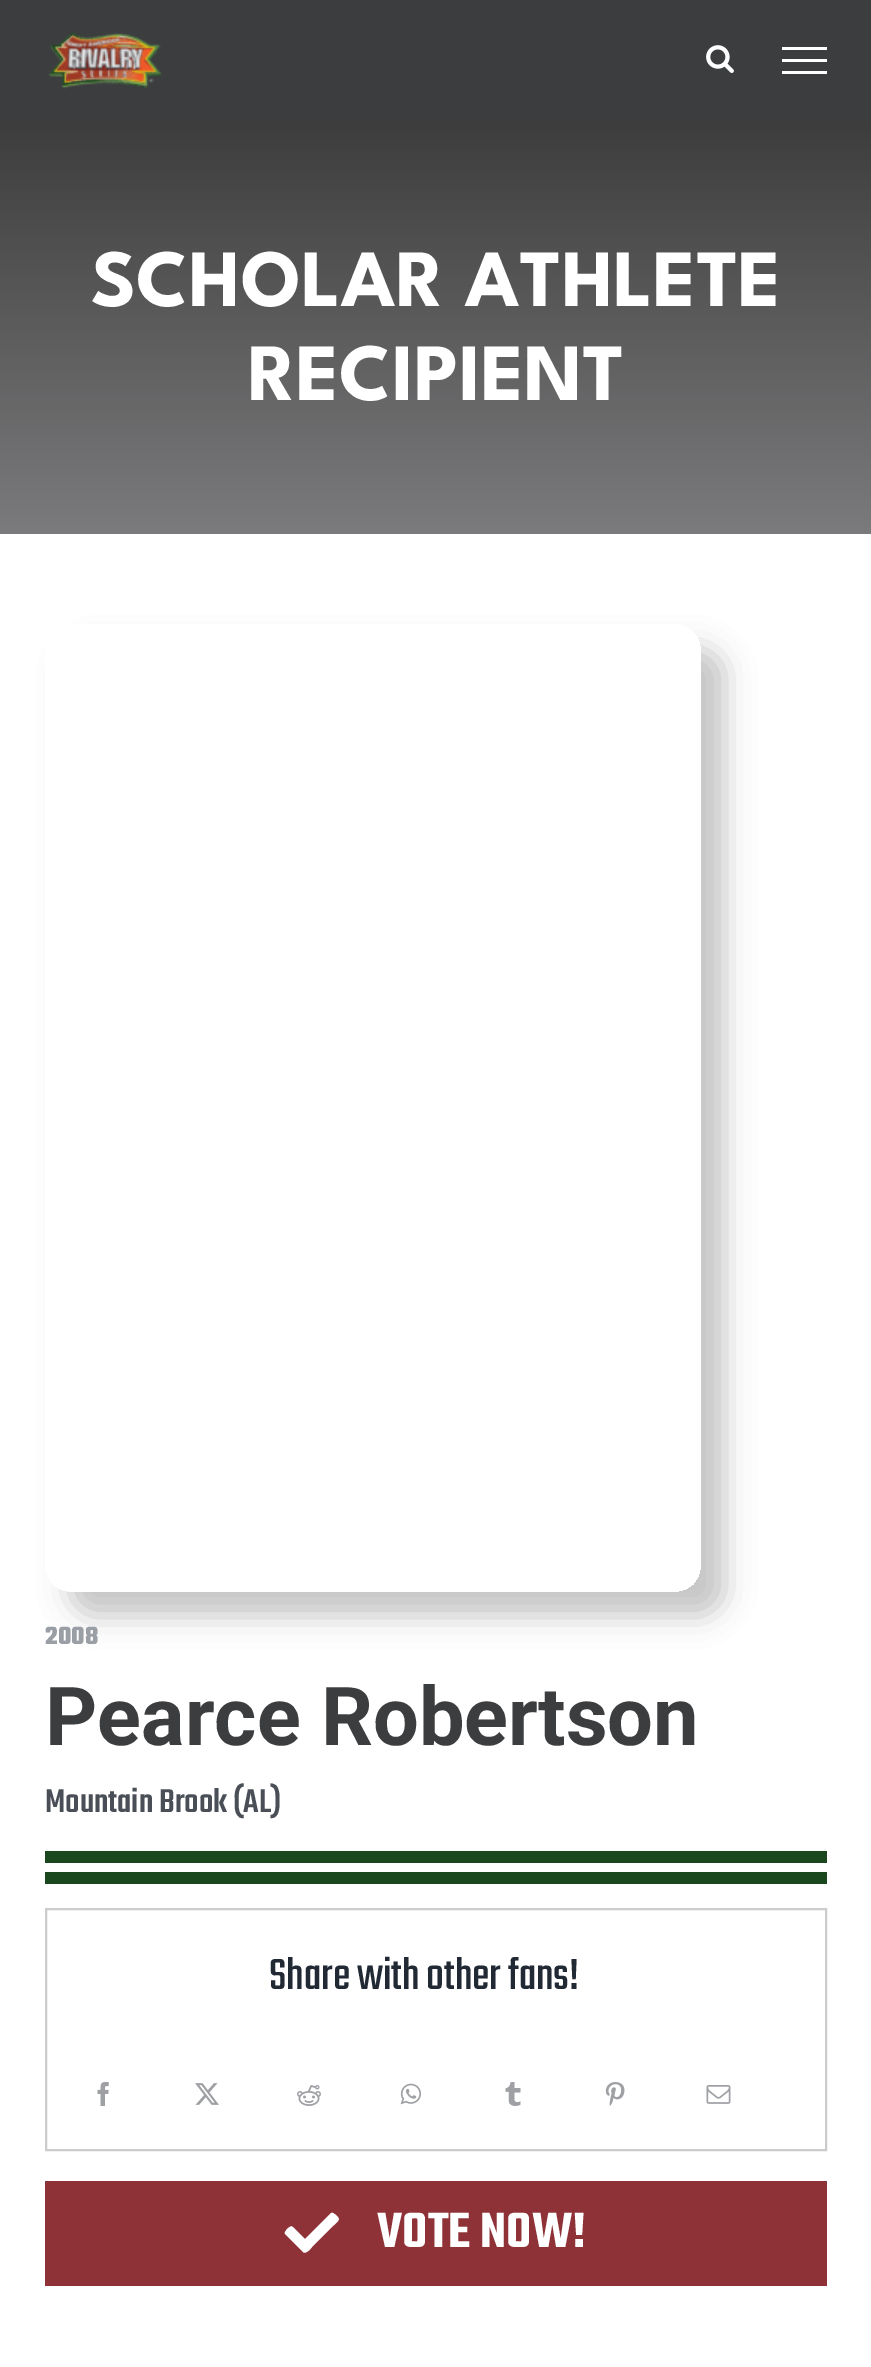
%!PS-Adobe-3.0
%%BoundingBox: 0 0 871 2367
%%LanguageLevel: 3
%%Pages: 1
%%EndComments
%%BeginProlog
/setalpha { dup .setfillconstantalpha .setstrokeconstantalpha } def
/rrect { 5 dict begin { /r /h /w /y /x } { exch def } forall
  x r add y moveto x w add y 2 copy h add r arct x w add y h add x 1 index r arct
  x y h add x y r arct x y 2 copy exch w add exch r arct closepath end } def
/softshadow { 12 dict begin { /a /b /q /h /w /y /x } { exch def } forall gsave /was 0 def
  9 -2 -9 { dup b mul 4 div /e exch def 1 sub .425 mul 2.718 exch exp 1 add a .99 .min exch div /now exch def
    1 1 now sub 1 was sub div sub setalpha /was now def
    w h .min e 2 mul add 0 gt { x e sub y e sub w e 2 mul add h e 2 mul add
      q e add b .6 mul add w h .min 2 div e add .min 0 .max rrect fill } if } for grestore end } def
/drawimage { 5 dict begin { /h /w /y /x /name } { exch def } forall
  gsave x y translate w h scale
  w h 8 [w 0 0 h 0 0] name (r) file false 3 colorimage grestore end } def
%%EndProlog
%%BeginSetup
<< /PageSize [871 2367] /PageUsesTransparency true >> setpagedevice
%%EndSetup
%%Page: 1 1
0 .pushpdf14devicefilter
0 2367 translate 1 -1 scale
4 setmiterlimit
1 setgray
0 0 871 2367 rectfill
0.235 0.239 0.247 setrgbcolor
0 0 871 120 rectfill
(images/1.raw) 48 32 114 57 drawimage
(images/2.raw) 706 45 28 28 drawimage
1 setgray
782 47 45 3 rectfill
782 59 45 3 rectfill
782 71 45 3 rectfill
gsave newpath 0 120 moveto 871 120 lineto 871 534 lineto 0 534 lineto closepath clip newpath
<< /ShadingType 2 /ColorSpace /DeviceRGB /Coords [526 117 526 536] /Extend [true true] /Function << /FunctionType 2 /Domain [0 1] /C0 [0.239 0.239 0.239] /C1 [0.482 0.482 0.49] /N 1 >> >> shfill grestore
gsave
newpath 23 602 moveto 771 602 lineto 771 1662 lineto 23 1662 lineto closepath 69 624 moveto 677 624 lineto 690.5 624 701 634.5 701 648 curveto 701 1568 lineto 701 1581.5 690.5 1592 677 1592 curveto 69 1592 lineto 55.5 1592 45 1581.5 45 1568 curveto 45 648 lineto 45 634.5 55.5 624 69 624 curveto closepath eoclip newpath
0.235 0.239 0.247 setrgbcolor
69 648 656 968 24 15 0.3 softshadow
grestore
0.106 0.278 0.122 setrgbcolor
45 1851 782 12 rectfill
45 1872 782 12 rectfill
0.8 setgray
2 setlinewidth
46 1909 780 241 rectstroke
(images/3.raw) 97 2082 12 24 drawimage
(images/4.raw) 195 2083 24 22 drawimage
(images/5.raw) 297 2085 24 21 drawimage
(images/6.raw) 400 2083 22 22 drawimage
(images/7.raw) 505 2082 16 24 drawimage
(images/8.raw) 605 2082 20 24 drawimage
(images/9.raw) 706 2085 25 19 drawimage
0.561 0.196 0.216 setrgbcolor
45 2181 782 105 rectfill
1 setgray
newpath 303 2252 moveto 285 2234 lineto 284 2232 286 2231 287 2229 curveto 291 2226 291 2225 295 2229 curveto 305 2239 lineto 331 2213 lineto 333 2212 334 2214 336 2215 curveto 341 2220 339 2220 333 2226 curveto 312 2247 lineto 312 2247 306 2255 303 2252 curveto closepath fill
/LeagueSpartan-Thin [81.25 0 0 -81.25 0 0] selectfont
91 306 moveto (SCHOLAR ATHLETE) show
248 400 moveto (RECIPIENT) show
/Teko-Bold [27 0 0 -27 0 0] selectfont
0.604 0.62 0.647 setrgbcolor
45 1644 moveto (2008) show
/Roboto-Bold [81.25 0 0 -81.25 0 0] selectfont
0.235 0.239 0.247 setrgbcolor
45 1745 moveto (Pearce Robertson) show
/Teko-Medium [36 0 0 -36 0 0] selectfont
0.29 0.306 0.341 setrgbcolor
45 1812 moveto (Mountain Brook \(AL\)) show
/Teko-Regular [48 0 0 -48 0 0] selectfont
0.129 0.161 0.204 setrgbcolor
269 1989 moveto (Share with other fans!) show
/Teko-SemiBold [54 0 0 -54 0 0] selectfont
1 setgray
377 2247 moveto (VOTE NOW!) show
.poppdf14devicefilter showpage
%%EOF
